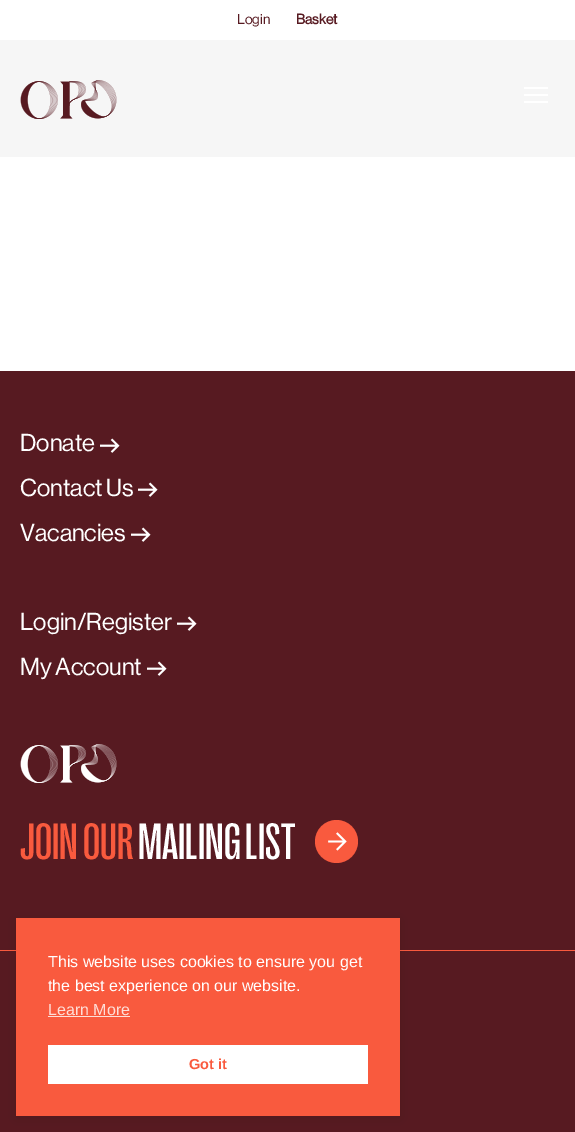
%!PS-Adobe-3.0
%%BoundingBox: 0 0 575 1132
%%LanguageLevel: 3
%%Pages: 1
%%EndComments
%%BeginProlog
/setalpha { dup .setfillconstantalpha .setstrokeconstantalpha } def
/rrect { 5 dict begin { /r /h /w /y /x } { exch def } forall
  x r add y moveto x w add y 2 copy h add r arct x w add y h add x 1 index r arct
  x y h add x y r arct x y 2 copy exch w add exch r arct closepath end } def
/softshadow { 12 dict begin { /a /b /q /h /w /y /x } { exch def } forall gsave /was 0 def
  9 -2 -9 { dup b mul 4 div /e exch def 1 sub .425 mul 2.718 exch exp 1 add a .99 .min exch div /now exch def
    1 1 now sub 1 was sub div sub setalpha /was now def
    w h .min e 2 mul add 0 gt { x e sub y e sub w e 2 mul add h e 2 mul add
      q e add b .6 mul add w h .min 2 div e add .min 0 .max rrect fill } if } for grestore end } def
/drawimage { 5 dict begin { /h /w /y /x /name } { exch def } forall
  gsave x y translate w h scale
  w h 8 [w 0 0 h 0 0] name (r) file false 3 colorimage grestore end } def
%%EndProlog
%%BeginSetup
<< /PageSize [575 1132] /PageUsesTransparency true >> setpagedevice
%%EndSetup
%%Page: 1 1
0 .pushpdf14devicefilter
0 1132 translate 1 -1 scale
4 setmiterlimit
1 setgray
0 0 575 1132 rectfill
0.965 setgray
0 40 575 117 rectfill
(images/1.raw) 20 80 97 39 drawimage
1 setgray
524 87 24 2 rectfill
524 94 24 2 rectfill
524 101 24 2 rectfill
0.341 0.102 0.129 setrgbcolor
0 371 575 761 rectfill
(images/2.raw) 100 438 20 15 drawimage
(images/2.raw) 138 482 20 15 drawimage
(images/2.raw) 131 527 20 15 drawimage
(images/2.raw) 177 616 20 15 drawimage
(images/2.raw) 147 661 20 15 drawimage
(images/3.raw) 20 744 97 39 drawimage
0.976 0.353 0.243 setrgbcolor
newpath 336.5 841.5 21.5 0 360 arc closepath fill
(images/4.raw) 328 832 19 19 drawimage
0 950 575 1 rectfill
0 setgray
16 920 384 198 0 7 0.1 softshadow
0.976 0.353 0.243 setrgbcolor
16 918 384 198 rectfill
0.996 0.871 0.847 setrgbcolor
48 1016 82 1 rectfill
1 setgray
48 1045 320 39 rectfill
/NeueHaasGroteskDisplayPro-Regular [14 0 0 -14 0 0] selectfont
0.341 0.102 0.129 setrgbcolor
237 24 moveto (Login) show
/NeueHaasGroteskDisplayPro-Bold [14 0 0 -14 0 0] selectfont
296 24 moveto (Basket) show
/NeueHaasGroteskDisplayPro-Regular [24 0 0 -24 0 0] selectfont
1 setgray
20 451 moveto (Donate) show
20 496 moveto (Contact Us) show
20 541 moveto (Vacancies) show
20 630 moveto (Login/Register) show
20 675 moveto (My Account) show
/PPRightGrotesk-Medium [52 0 0 -52 0 0] selectfont
0.976 0.353 0.243 setrgbcolor
20 859 moveto (JOIN OUR) show
1 setgray
138 859 moveto (MAILING LIST) show
/LiberationSans-Regular [16 0 0 -16 0 0] selectfont
48 967 moveto (This website uses cookies to ensure you get) show
48 991 moveto (the best experience on our website.) show
0.996 0.871 0.847 setrgbcolor
48 1015 moveto (Learn More) show
/LiberationSans-Bold [14.5 0 0 -14.5 0 0] selectfont
0.976 0.353 0.243 setrgbcolor
189 1069 moveto (Got it) show
.poppdf14devicefilter showpage
%%EOF
